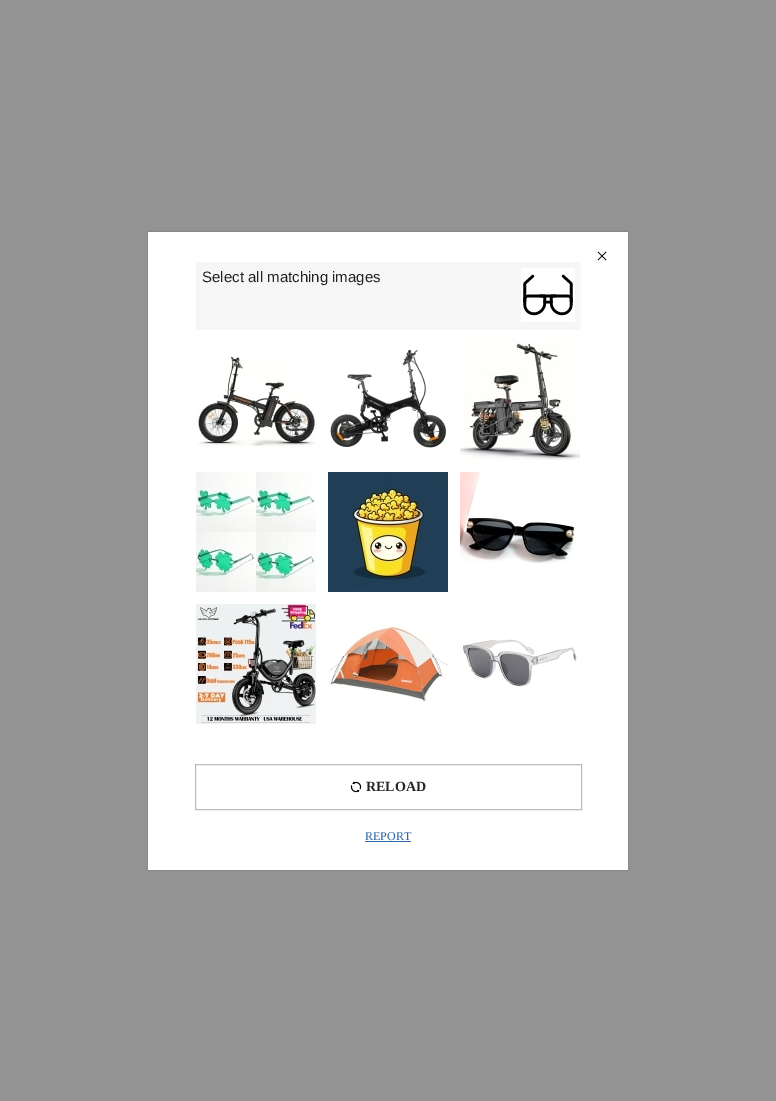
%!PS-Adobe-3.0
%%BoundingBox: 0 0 776 1101
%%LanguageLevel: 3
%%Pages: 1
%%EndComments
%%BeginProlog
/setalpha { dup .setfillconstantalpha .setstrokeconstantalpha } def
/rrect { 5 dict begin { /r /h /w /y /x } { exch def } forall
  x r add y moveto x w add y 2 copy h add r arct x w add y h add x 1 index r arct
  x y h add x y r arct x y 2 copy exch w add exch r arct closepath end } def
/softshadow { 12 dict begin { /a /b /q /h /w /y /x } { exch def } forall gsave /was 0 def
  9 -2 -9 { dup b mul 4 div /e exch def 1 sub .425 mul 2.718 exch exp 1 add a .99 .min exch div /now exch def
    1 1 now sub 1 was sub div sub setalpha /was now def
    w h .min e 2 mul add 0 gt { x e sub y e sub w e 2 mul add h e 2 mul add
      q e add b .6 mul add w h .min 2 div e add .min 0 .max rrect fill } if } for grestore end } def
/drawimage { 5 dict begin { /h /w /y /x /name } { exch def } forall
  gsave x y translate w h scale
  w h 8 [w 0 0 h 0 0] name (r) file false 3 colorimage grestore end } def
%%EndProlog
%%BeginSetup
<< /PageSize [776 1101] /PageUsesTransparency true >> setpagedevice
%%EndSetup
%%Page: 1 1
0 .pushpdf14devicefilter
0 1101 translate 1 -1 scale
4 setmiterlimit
0.576 setgray
0 0 776 1101 rectfill
0 setgray
148 232 480 638 0 0.5 0.3 softshadow
1 setgray
148 232 480 638 rectfill
(images/1.raw) 597 251 10 10 drawimage
0.965 setgray
196 262 385 68 rectfill
1 setgray
521 268 54 54 rectfill
(images/2.raw) 523 274 50 42 drawimage
(images/3.raw) 196 356 120 96 drawimage
(images/4.raw) 330 345 116 103 drawimage
(images/5.raw) 460 340 120 120 drawimage
(images/6.raw) 196 472 120 120 drawimage
(images/7.raw) 328 472 120 120 drawimage
(images/8.raw) 460 472 116 92 drawimage
(images/9.raw) 196 604 120 120 drawimage
(images/10.raw) 329 625 119 77 drawimage
(images/11.raw) 463 639 114 48 drawimage
0.733 setgray
195.5 764.5 386 45 rectstroke
(images/12.raw) 350 781 12 12 drawimage
0.176 0.408 0.659 setrgbcolor
365 841 46 1 rectfill
/LiberationSans-Regular [15 0 0 -15 0 0] selectfont
0.133 setgray
202 282 moveto (Select all matching images) show
/LiberationSerif-Bold [14 0 0 -14 0 0] selectfont
366 791 moveto (RELOAD) show
/LiberationSerif-Regular [12 0 0 -12 0 0] selectfont
0.176 0.408 0.659 setrgbcolor
365 840 moveto (REPORT) show
.poppdf14devicefilter showpage
%%EOF
